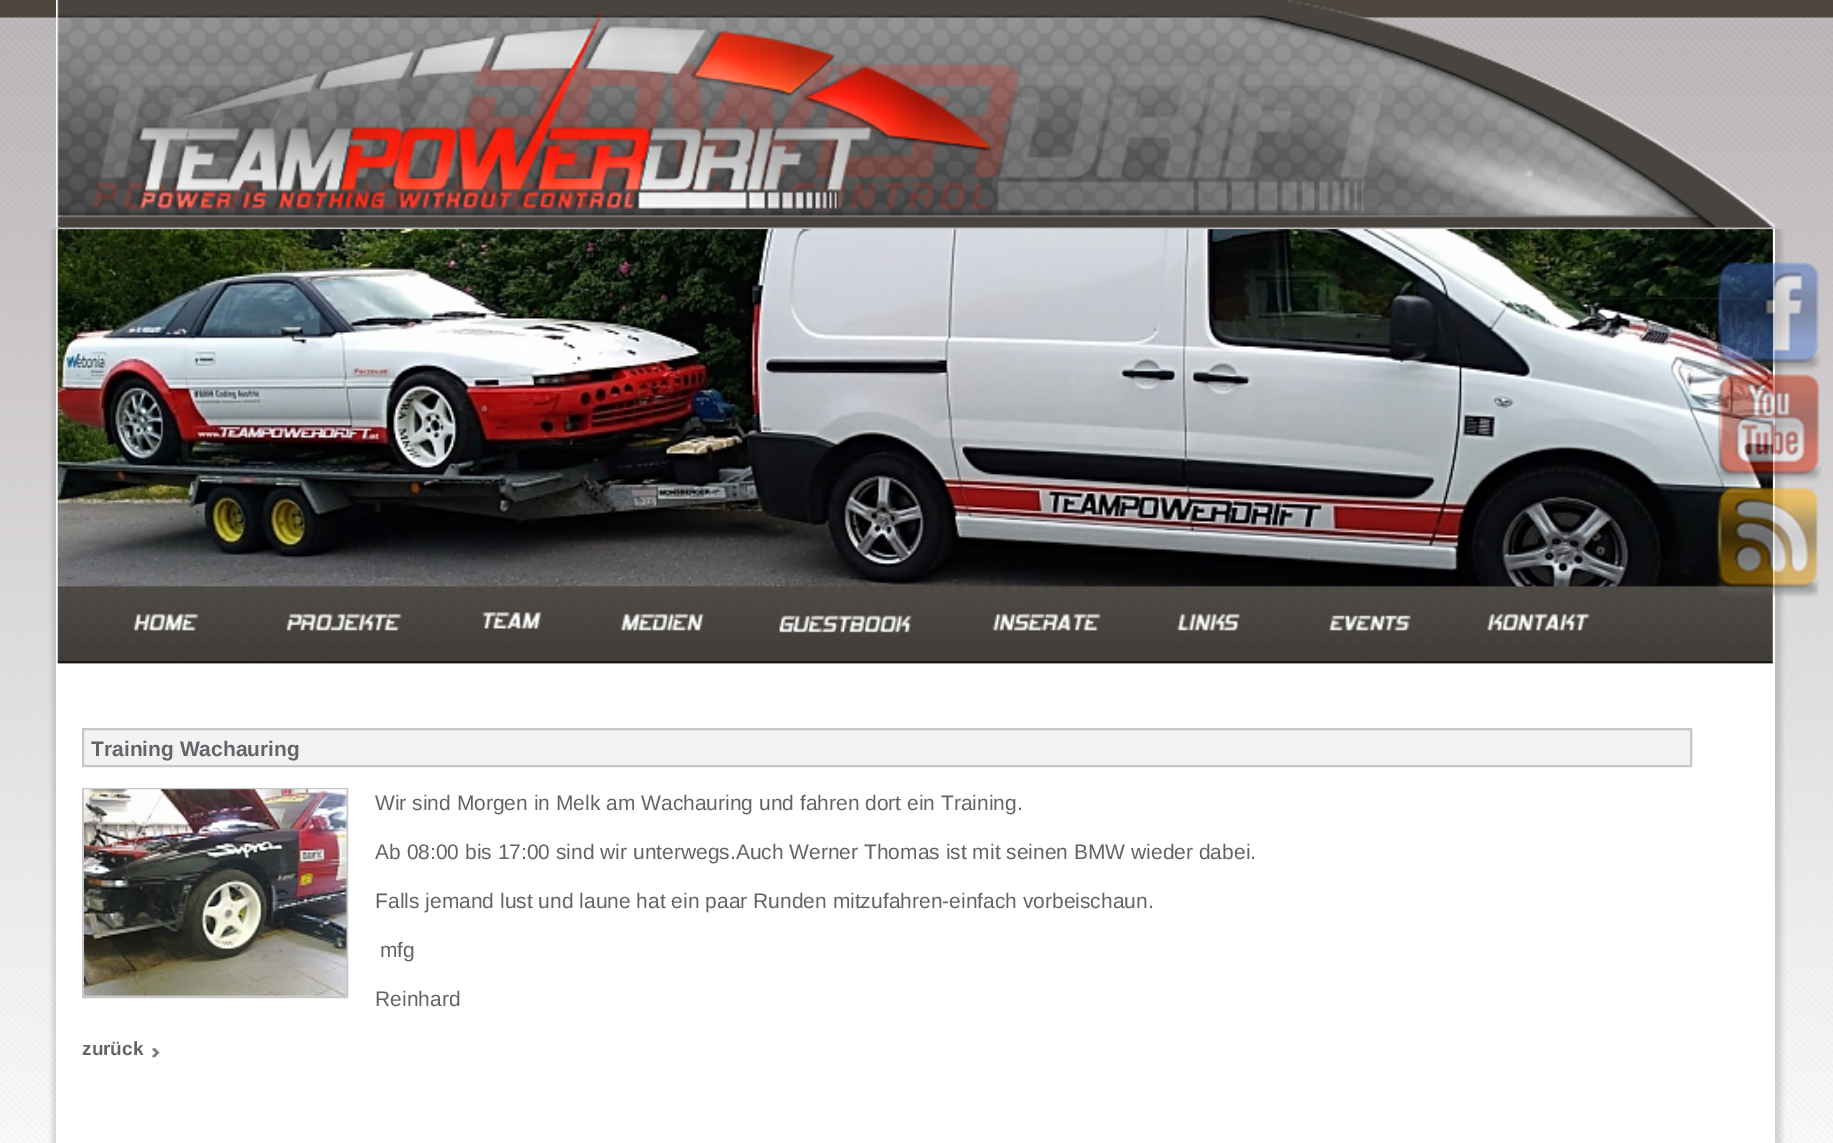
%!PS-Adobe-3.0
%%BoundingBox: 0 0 1833 1143
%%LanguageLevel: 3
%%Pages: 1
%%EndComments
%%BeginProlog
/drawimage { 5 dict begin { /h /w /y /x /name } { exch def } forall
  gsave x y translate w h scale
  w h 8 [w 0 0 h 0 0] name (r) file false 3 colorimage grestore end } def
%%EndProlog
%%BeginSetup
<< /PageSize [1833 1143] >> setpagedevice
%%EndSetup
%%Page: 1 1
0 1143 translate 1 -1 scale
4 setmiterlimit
1 setgray
0 0 1833 1143 rectfill
(images/1.raw) 0 0 1833 1143 drawimage
(images/2.raw) 56 0 1719 228 drawimage
(images/6.raw) 49 229 1736 914 drawimage
56 229 1719 914 rectfill
(images/7.raw) 57 229 1716 359 drawimage
(images/8.raw) 57 229 1716 359 drawimage
(images/3.raw) 1714 262 108 110 drawimage
(images/4.raw) 1715 374 107 108 drawimage
(images/9.raw) 57 585 1716 79 drawimage
(images/5.raw) 1716 487 103 111 drawimage
(images/10.raw) 133 613 66 18 drawimage
(images/11.raw) 286 613 116 18 drawimage
(images/12.raw) 482 612 60 17 drawimage
(images/13.raw) 620 613 84 18 drawimage
(images/14.raw) 779 615 133 18 drawimage
(images/15.raw) 992 613 109 18 drawimage
(images/16.raw) 1177 613 64 18 drawimage
(images/17.raw) 1329 615 82 16 drawimage
(images/18.raw) 1487 613 103 18 drawimage
0.949 setgray
newpath 83 729 moveto 1691 729 lineto 1691 766 lineto 83 766 lineto closepath gsave fill grestore
0.78 setgray
2 setlinewidth
stroke
83 789 264 208 rectstroke
(images/19.raw) 84 789 263 207 drawimage
(images/20.raw) 151 1047 9 11 drawimage
/LiberationSans-Bold [21 0 0 -21 0 0] selectfont
0.384 0.392 0.412 setrgbcolor
91 756 moveto (Training Wachauring) show
/LiberationSans-Regular [21 0 0 -21 0 0] selectfont
375 810 moveto (Wir sind Morgen in Melk am Wachauring und fahren dort ein Training.) show
375 859 moveto (Ab 08:00 bis 17:00 sind wir unterwegs.Auch Werner Thomas ist mit seinen BMW wieder dabei.) show
375 908 moveto (Falls jemand lust und laune hat ein paar Runden mitzufahren-einfach vorbeischaun.) show
380 957 moveto (mfg) show
375 1006 moveto (Reinhard) show
/LiberationSans-Bold [19 0 0 -19 0 0] selectfont
82 1055 moveto (zurück) show
showpage
%%EOF
